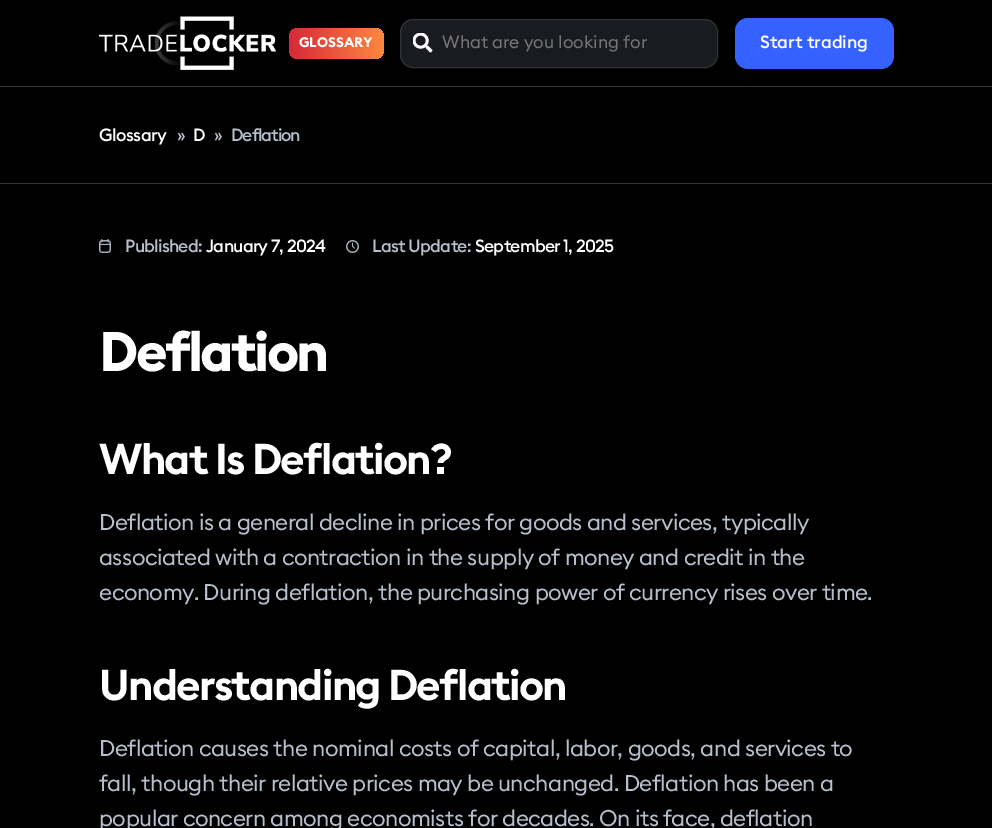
%!PS-Adobe-3.0
%%BoundingBox: 0 0 992 828
%%LanguageLevel: 3
%%Pages: 1
%%EndComments
%%BeginProlog
/rrect { 5 dict begin { /r /h /w /y /x } { exch def } forall
  x r add y moveto x w add y 2 copy h add r arct x w add y h add x 1 index r arct
  x y h add x y r arct x y 2 copy exch w add exch r arct closepath end } def
/drawimage { 5 dict begin { /h /w /y /x /name } { exch def } forall
  gsave x y translate w h scale
  w h 8 [w 0 0 h 0 0] name (r) file false 3 colorimage grestore end } def
%%EndProlog
%%BeginSetup
<< /PageSize [992 828] >> setpagedevice
%%EndSetup
%%Page: 1 1
0 828 translate 1 -1 scale
4 setmiterlimit
0 setgray
0 0 992 828 rectfill
0.196 0.2 0.208 setrgbcolor
0 86 992 1 rectfill
(images/1.raw) 99 16 177 54 drawimage
gsave 289 28 95 31 9 rrect clip newpath
<< /ShadingType 2 /ColorSpace /DeviceRGB /Coords [384 43 289 43] /Extend [true true] /Function << /FunctionType 2 /Domain [0 1] /C0 [1 0.533 0.247] /C1 [0.839 0.157 0.224] /N 1 >> >> shfill grestore
0.102 0.106 0.125 setrgbcolor
400.5 19.5 317 48 12.5 rrect gsave fill grestore
0.196 0.2 0.208 setrgbcolor
stroke
(images/2.raw) 413 33 20 20 drawimage
0.204 0.38 1 setrgbcolor
735 18 159 51 13 rrect fill
0.196 0.2 0.208 setrgbcolor
0 183 992 1 rectfill
(images/3.raw) 99 239 12 14 drawimage
(images/4.raw) 346 240 13 13 drawimage
/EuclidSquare-Bold [13.75 0 0 -13.75 0 0] selectfont
1 setgray
299 47 moveto (GLOSSARY) show
/EuclidSquare-Regular [17.5 0 0 -17.5 0 0] selectfont
0.459 setgray
442 48 moveto (What are you looking for) show
/EuclidSquare-Medium [17.5 0 0 -17.5 0 0] selectfont
1 setgray
760 48 moveto (Start trading) show
99 141 moveto -0.5 0 (Glossary) ashow
0.714 0.745 0.8 setrgbcolor
177 141 moveto -1.1 0 (») ashow
1 setgray
193 141 moveto -0.5 0 (D) ashow
0.714 0.745 0.8 setrgbcolor
214 141 moveto -1.1 0 (») ashow
231 141 moveto -1.1 0 (Deflation) ashow
125 252 moveto -0.75 0 (Published:) ashow
1 setgray
206 252 moveto -0.75 0 (January 7, 2024) ashow
0.714 0.745 0.8 setrgbcolor
372 252 moveto -0.75 0 (Last Update:) ashow
1 setgray
475 252 moveto -0.75 0 (September 1, 2025) ashow
/EuclidSquare-Bold [55 0 0 -55 0 0] selectfont
99 371 moveto -2.75 0 (Deflation) ashow
/EuclidSquare-SemiBold [42.5 0 0 -42.5 0 0] selectfont
99 474 moveto -1.7 0 (What Is Deflation?) ashow
/EuclidSquare-Regular [22.5 0 0 -22.5 0 0] selectfont
0.714 0.745 0.8 setrgbcolor
99 530 moveto -0.55 0 (Deflation is a general decline in prices for goods and services, typically) ashow
99 565 moveto -0.55 0 (associated with a contraction in the supply of money and credit in the) ashow
99 600 moveto -0.55 0 (economy. During deflation, the purchasing power of currency rises over time.) ashow
/EuclidSquare-SemiBold [42.5 0 0 -42.5 0 0] selectfont
1 setgray
99 700 moveto -1.7 0 (Understanding Deflation) ashow
/EuclidSquare-Regular [22.5 0 0 -22.5 0 0] selectfont
0.714 0.745 0.8 setrgbcolor
99 756 moveto -0.55 0 (Deflation causes the nominal costs of capital, labor, goods, and services to) ashow
99 791 moveto -0.55 0 (fall, though their relative prices may be unchanged. Deflation has been a) ashow
99 826 moveto -0.55 0 (popular concern among economists for decades. On its face, deflation) ashow
showpage
%%EOF
